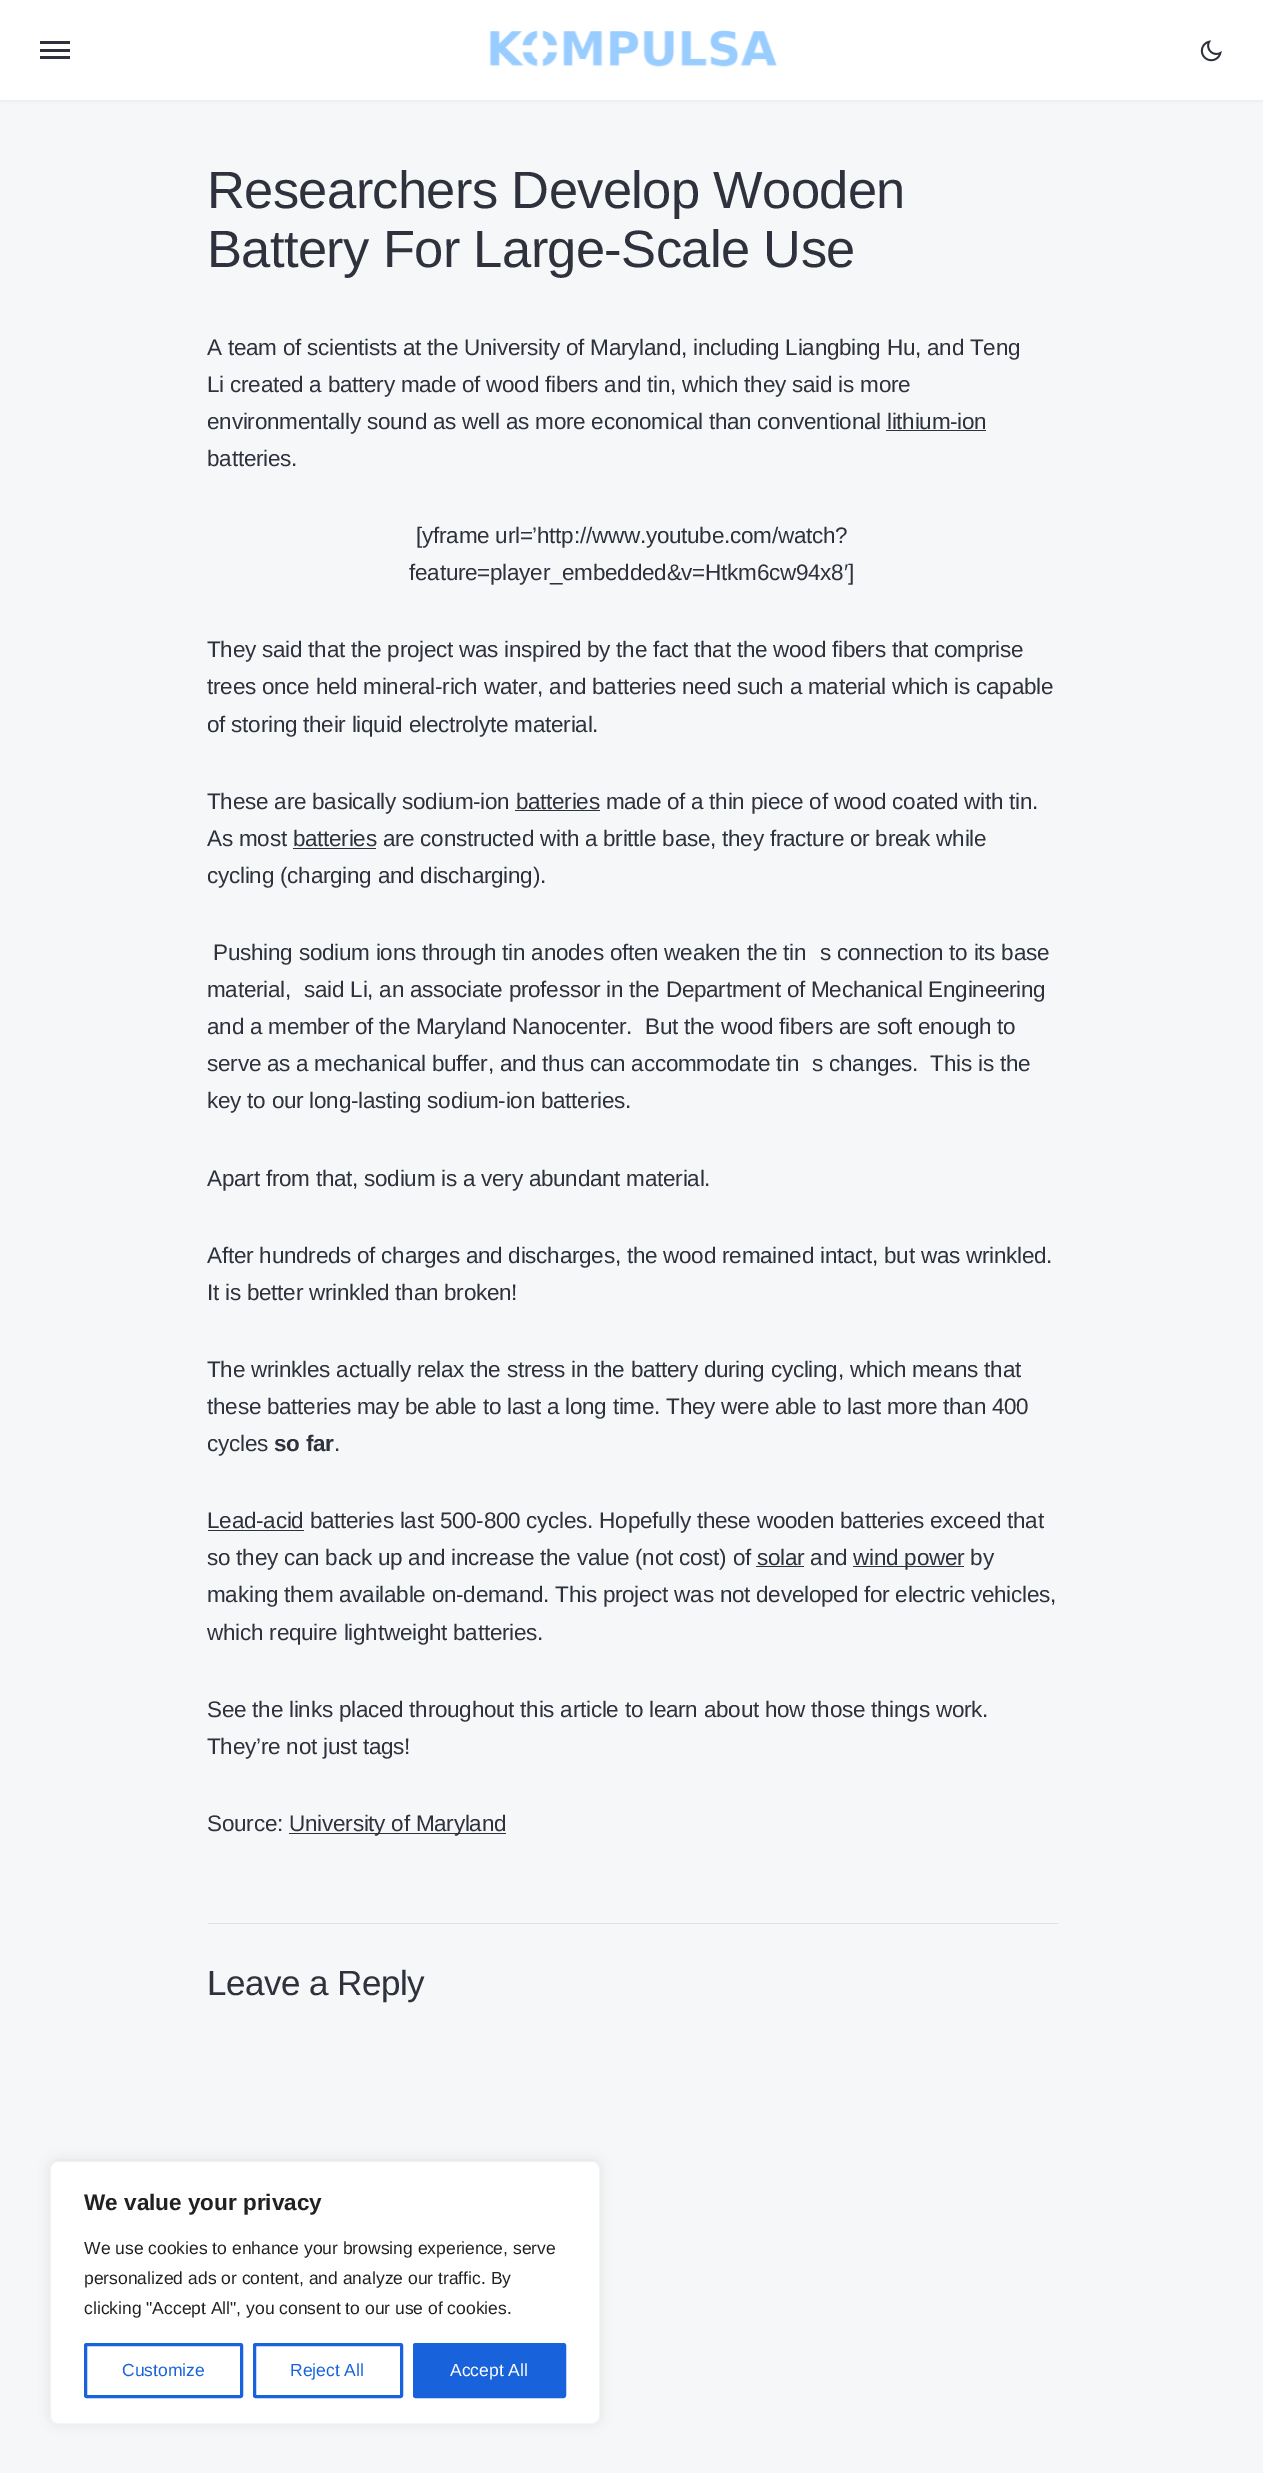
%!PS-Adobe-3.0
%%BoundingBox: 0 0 1263 2473
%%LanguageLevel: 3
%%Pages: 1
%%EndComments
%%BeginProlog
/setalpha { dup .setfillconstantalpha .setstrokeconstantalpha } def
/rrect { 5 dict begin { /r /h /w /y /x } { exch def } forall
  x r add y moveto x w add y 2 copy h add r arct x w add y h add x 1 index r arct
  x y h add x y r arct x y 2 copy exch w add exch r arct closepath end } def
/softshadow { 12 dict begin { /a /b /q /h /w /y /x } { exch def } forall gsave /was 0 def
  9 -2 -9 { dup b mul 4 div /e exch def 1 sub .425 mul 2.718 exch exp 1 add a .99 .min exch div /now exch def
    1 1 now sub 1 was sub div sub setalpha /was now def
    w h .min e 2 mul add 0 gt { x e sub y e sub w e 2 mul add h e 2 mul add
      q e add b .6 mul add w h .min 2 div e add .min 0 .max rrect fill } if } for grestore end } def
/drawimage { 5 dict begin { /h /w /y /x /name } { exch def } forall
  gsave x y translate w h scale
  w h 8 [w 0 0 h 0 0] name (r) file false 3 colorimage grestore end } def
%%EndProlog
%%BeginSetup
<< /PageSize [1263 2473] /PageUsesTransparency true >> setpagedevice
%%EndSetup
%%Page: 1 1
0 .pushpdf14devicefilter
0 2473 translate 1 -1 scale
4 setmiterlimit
0.961 0.969 0.973 setrgbcolor
0 0 1263 2473 rectfill
0 setgray
0 1 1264 100 0 2 0.05 softshadow
1 setgray
0 0 1263 100 rectfill
0.184 0.196 0.239 setrgbcolor
40 41 30 3 rectfill
40 49 30 3 rectfill
40 56 30 3 rectfill
(images/1.raw) 489 30 288 37 drawimage
(images/2.raw) 1200 40 22 22 drawimage
886 430 100 1 rectfill
515 810 85 1 rectfill
293 848 83 1 rectfill
208 1530 96 1 rectfill
853 1566 111 1 rectfill
756 1566 48 1 rectfill
289 1833 217 1 rectfill
0.871 0.886 0.902 setrgbcolor
208 1923 850 1 rectfill
0.675 0.671 0.671 setrgbcolor
50 2160 550 263 8 6 0.3 softshadow
1 setgray
50.5 2161.5 549 262 7.5 rrect gsave fill grestore
0.957 setgray
stroke
0.094 0.388 0.863 setrgbcolor
3 setlinewidth
85.5 2344.5 156 52 1 rrect stroke
254.5 2344.5 147 52 1 rrect stroke
414.5 2344.5 150 52 1 rrect gsave fill grestore
stroke
/LiberationSans-Regular [52.5 0 0 -52.5 0 0] selectfont
0.184 0.196 0.239 setrgbcolor
207 208 moveto -0.65 0 (Researchers Develop Wooden) ashow
207 267 moveto -0.65 0 (Battery For Large-Scale Use) ashow
/LiberationSans-Regular [22.5 0 0 -22.5 0 0] selectfont
207 355 moveto -0.25 0 (A team of scientists at the University of Maryland, including Liangbing Hu, and Teng) ashow
207 392 moveto -0.25 0 (Li created a battery made of wood fibers and tin, which they said is more) ashow
207 429 moveto -0.25 0 (environmentally sound as well as more economical than conventional lithium-ion) ashow
207 466 moveto -0.25 0 (batteries.) ashow
416 543 moveto -0.25 0 ([yframe url=’http://www.youtube.com/watch?) ashow
409 580 moveto -0.25 0 (feature=player_embedded&v=Htkm6cw94x8′]) ashow
207 657 moveto -0.25 0 (They said that the project was inspired by the fact that the wood fibers that comprise) ashow
207 694 moveto -0.25 0 (trees once held mineral-rich water, and batteries need such a material which is capable) ashow
207 732 moveto -0.25 0 (of storing their liquid electrolyte material.) ashow
207 809 moveto -0.25 0 (These are basically sodium-ion batteries made of a thin piece of wood coated with tin.) ashow
207 846 moveto -0.25 0 (As most batteries are constructed with a brittle base, they fracture or break while) ashow
207 883 moveto -0.25 0 (cycling \(charging and discharging\).) ashow
213 960 moveto -0.25 0 (Pushing sodium ions through tin anodes often weaken the tin) ashow
820 960 moveto -0.25 0 (s connection to its base) ashow
207 997 moveto -0.25 0 (material,) ashow
304 997 moveto -0.25 0 (said Li, an associate professor in the Department of Mechanical Engineering) ashow
207 1034 moveto -0.25 0 (and a member of the Maryland Nanocenter.) ashow
645 1034 moveto -0.25 0 (But the wood fibers are soft enough to) ashow
207 1071 moveto -0.25 0 (serve as a mechanical buffer, and thus can accommodate tin) ashow
812 1071 moveto -0.25 0 (s changes.  This is the) ashow
207 1108 moveto -0.25 0 (key to our long-lasting sodium-ion batteries.) ashow
207 1186 moveto -0.25 0 (Apart from that, sodium is a very abundant material.) ashow
207 1263 moveto -0.25 0 (After hundreds of charges and discharges, the wood remained intact, but was wrinkled.) ashow
207 1300 moveto -0.25 0 (It is better wrinkled than broken!) ashow
207 1377 moveto -0.25 0 (The wrinkles actually relax the stress in the battery during cycling, which means that) ashow
207 1414 moveto -0.25 0 (these batteries may be able to last a long time. They were able to last more than 400) ashow
207 1451 moveto -0.25 0 (cycles) ashow
/LiberationSans-Bold [22.5 0 0 -22.5 0 0] selectfont
274 1451 moveto -0.25 0 (so far) ashow
/LiberationSans-Regular [22.5 0 0 -22.5 0 0] selectfont
334 1451 moveto -0.25 0 (.) ashow
207 1528 moveto -0.25 0 (Lead-acid batteries last 500-800 cycles. Hopefully these wooden batteries exceed that) ashow
207 1565 moveto -0.25 0 (so they can back up and increase the value \(not cost\) of solar and) ashow
853 1565 moveto -0.25 0 (wind power by) ashow
207 1602 moveto -0.25 0 (making them available on-demand. This project was not developed for electric vehicles,) ashow
207 1640 moveto -0.25 0 (which require lightweight batteries.) ashow
207 1717 moveto -0.25 0 (See the links placed throughout this article to learn about how those things work.) ashow
207 1754 moveto -0.25 0 (They’re not just tags!) ashow
207 1831 moveto -0.25 0 (Source:) ashow
289 1831 moveto -0.25 0 (University of Maryland) ashow
/LiberationSans-Regular [35 0 0 -35 0 0] selectfont
207 1995 moveto -0.5 0 (Leave a Reply) ashow
/LiberationSans-Bold [22.5 0 0 -22.5 0 0] selectfont
0.129 setgray
84 2210 moveto (We value your privacy) show
/LiberationSans-Regular [17.5 0 0 -17.5 0 0] selectfont
84 2254 moveto (We use cookies to enhance your browsing experience, serve) show
84 2284 moveto (personalized ads or content, and analyze our traffic. By) show
84 2314 moveto (clicking "Accept All", you consent to our use of cookies.) show
0.094 0.388 0.863 setrgbcolor
122 2376 moveto (Customize) show
290 2376 moveto (Reject All) show
1 setgray
450 2376 moveto (Accept All) show
.poppdf14devicefilter showpage
%%EOF
